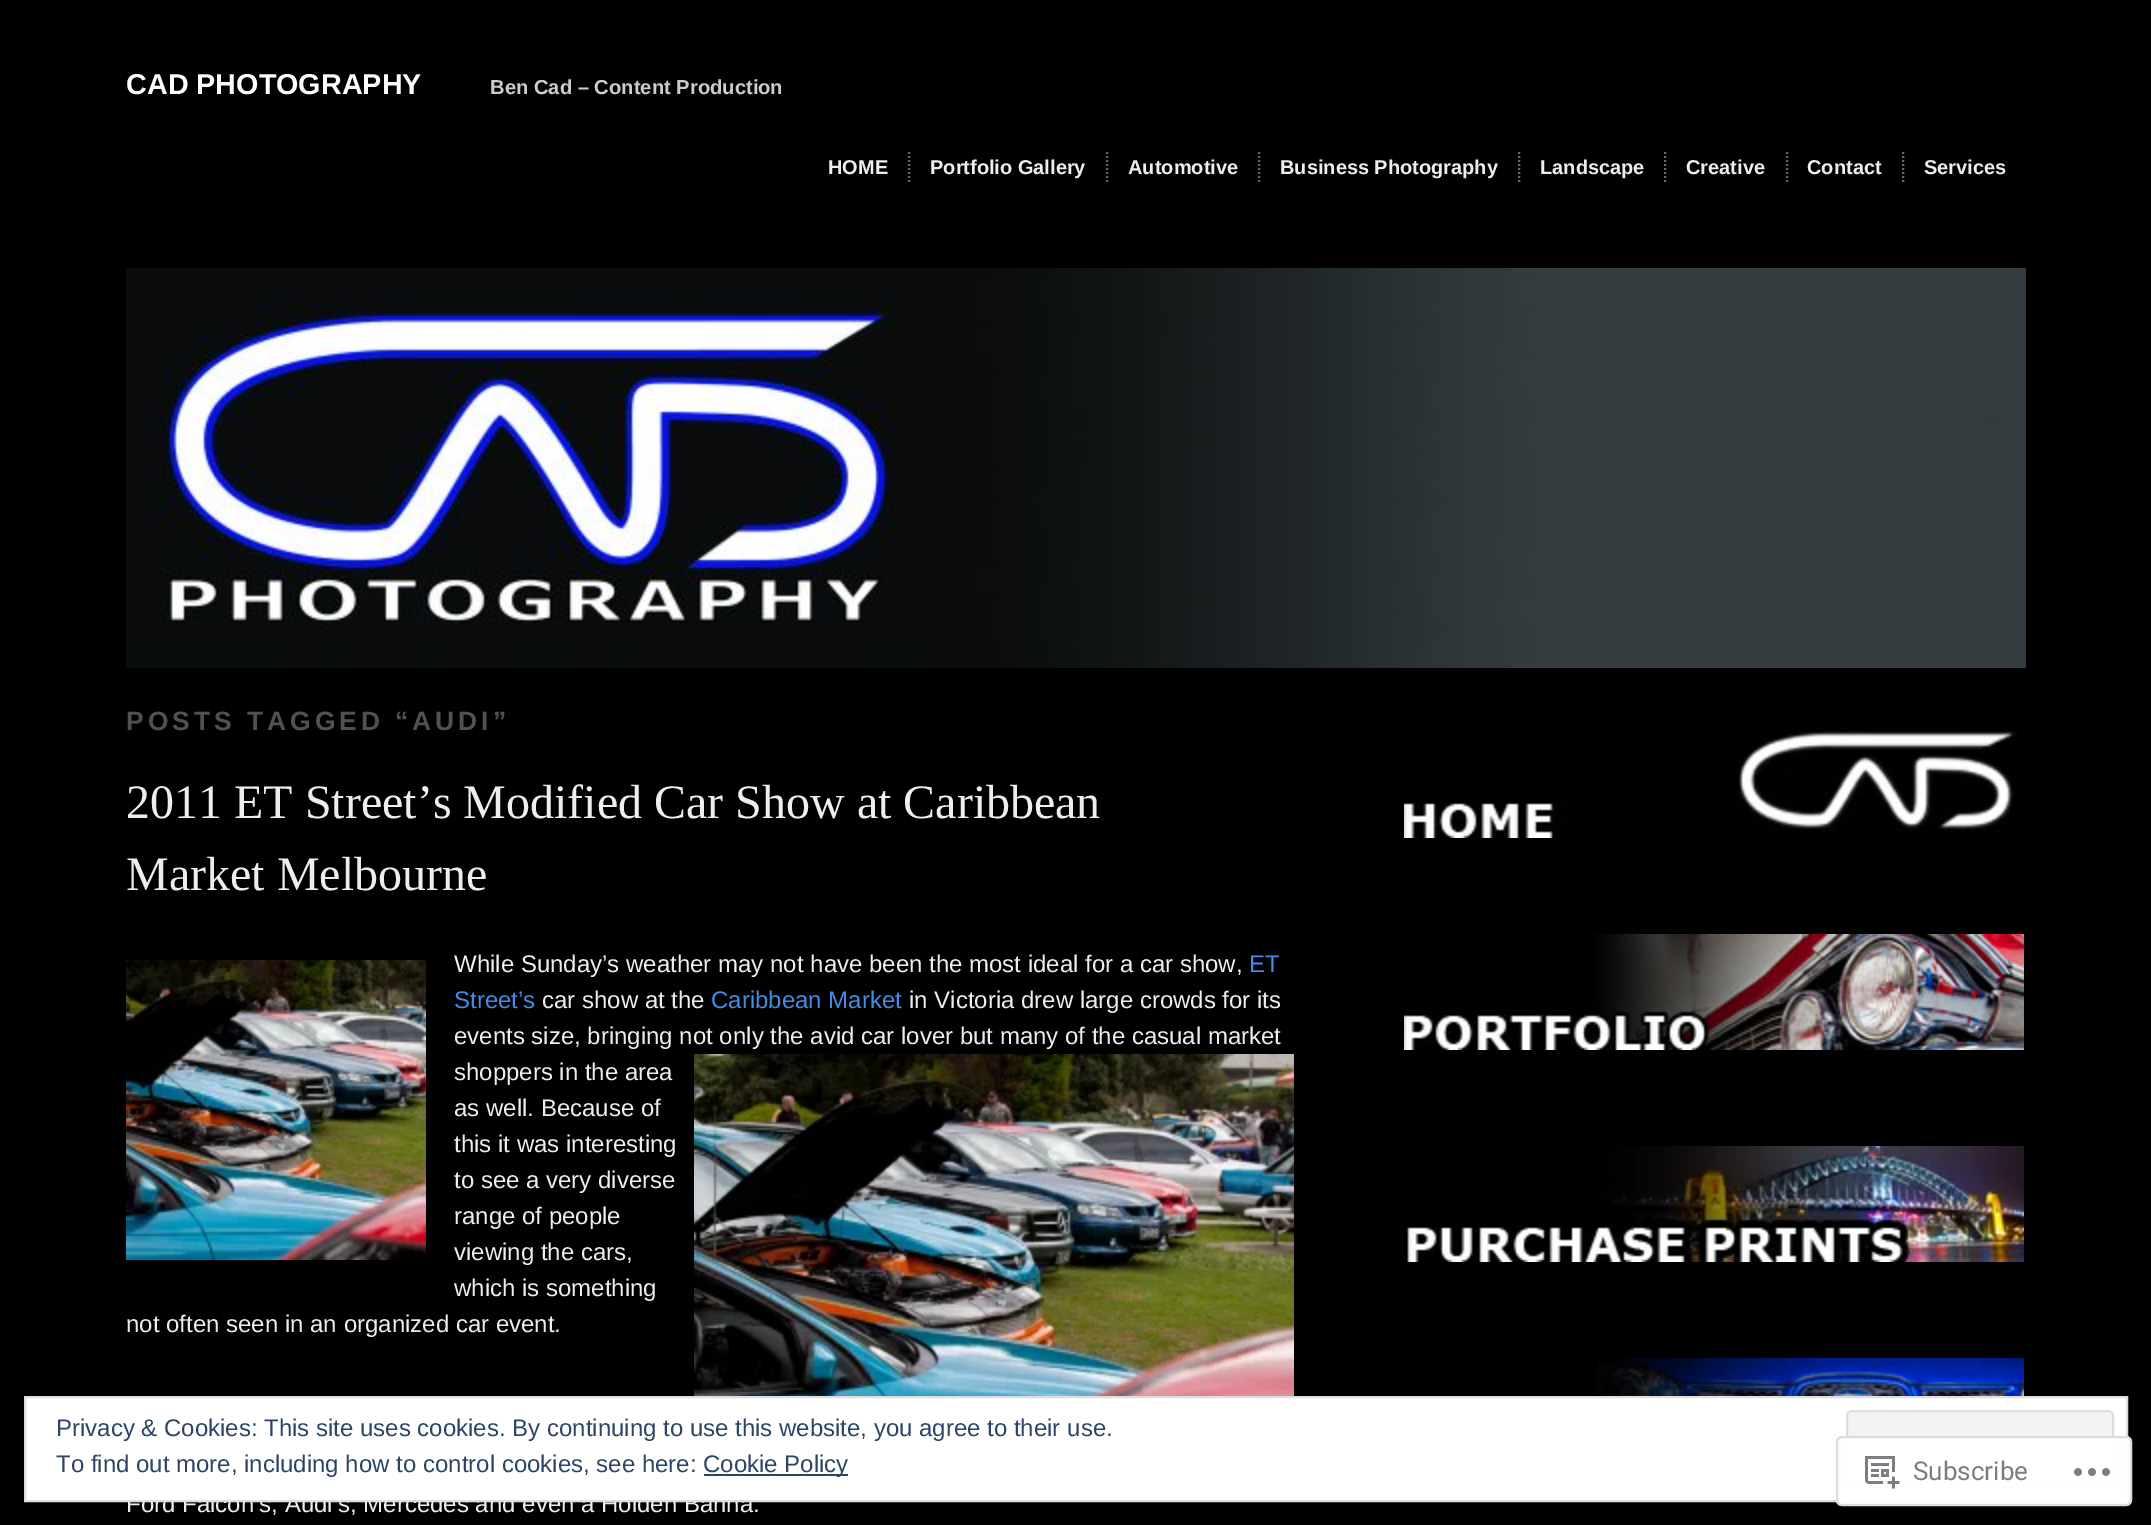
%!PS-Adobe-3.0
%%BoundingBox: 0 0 2151 1525
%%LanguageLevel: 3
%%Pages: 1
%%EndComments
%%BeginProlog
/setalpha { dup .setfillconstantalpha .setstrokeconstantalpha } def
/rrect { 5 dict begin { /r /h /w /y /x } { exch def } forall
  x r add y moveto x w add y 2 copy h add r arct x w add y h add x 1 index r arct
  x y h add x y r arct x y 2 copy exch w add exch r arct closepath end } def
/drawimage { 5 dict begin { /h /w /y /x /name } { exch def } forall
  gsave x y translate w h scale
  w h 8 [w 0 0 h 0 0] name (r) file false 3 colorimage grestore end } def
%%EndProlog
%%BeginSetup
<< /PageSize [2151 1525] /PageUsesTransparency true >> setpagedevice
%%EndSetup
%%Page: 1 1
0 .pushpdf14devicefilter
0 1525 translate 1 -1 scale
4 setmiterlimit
0 setgray
0 0 2151 1525 rectfill
0.4 setgray
2 setlinewidth
[2 2] 0 setdash
newpath 909 152 moveto 909 182 lineto stroke
newpath 1107 152 moveto 1107 182 lineto stroke
newpath 1259 152 moveto 1259 182 lineto stroke
newpath 1519 152 moveto 1519 182 lineto stroke
newpath 1665 152 moveto 1665 182 lineto stroke
newpath 1787 152 moveto 1787 182 lineto stroke
newpath 1903 152 moveto 1903 182 lineto stroke
(images/1.raw) 126 268 1900 400 drawimage
(images/2.raw) 694 1054 600 342 drawimage
(images/3.raw) 126 960 300 300 drawimage
(images/4.raw) 1404 722 620 116 drawimage
(images/5.raw) 1404 934 620 116 drawimage
(images/6.raw) 1406 1146 618 116 drawimage
(images/7.raw) 1404 1358 620 38 drawimage
/LiberationSans-Bold [28.75 0 0 -28.75 0 0] selectfont
1 setgray
126 94 moveto (CAD PHOTOGRAPHY) show
/LiberationSans-Bold [20.2 0 0 -20.2 0 0] selectfont
0.8 setgray
490 94 moveto (Ben Cad – Content Production) show
/LiberationSans-Bold [20 0 0 -20 0 0] selectfont
0.933 setgray
828 174 moveto (HOME) show
930 174 moveto (Portfolio Gallery) show
1128 174 moveto (Automotive) show
1280 174 moveto (Business Photography) show
1540 174 moveto (Landscape) show
1686 174 moveto (Creative) show
1807 174 moveto (Contact) show
1924 174 moveto (Services) show
/LiberationSans-Bold [26.4 0 0 -26.4 0 0] selectfont
0.318 setgray
126 730 moveto 4 0 (POSTS TAGGED “AUDI”) ashow
/LiberationSerif-Regular [48 0 0 -48 0 0] selectfont
0.933 setgray
126 818 moveto (2011 ET Street’s Modified Car Show at Caribbean) show
126 890 moveto (Market Melbourne) show
/LiberationSans-Regular [24 0 0 -24 0 0] selectfont
454 972 moveto (While Sunday’s weather may not have been the most ideal for a car show,) show
0.259 0.549 0.906 setrgbcolor
1249 972 moveto (ET) show
454 1008 moveto (Street’s) show
0.933 setgray
542 1008 moveto (car show at the) show
0.259 0.549 0.906 setrgbcolor
711 1008 moveto (Caribbean Market) show
0.933 setgray
909 1008 moveto (in Victoria drew large crowds for its) show
454 1044 moveto (events size, bringing not only the avid car lover but many of the casual market) show
454 1080 moveto (shoppers in the area) show
454 1116 moveto (as well. Because of) show
454 1152 moveto (this it was interesting) show
454 1188 moveto (to see a very diverse) show
454 1224 moveto (range of people) show
454 1260 moveto (viewing the cars,) show
454 1296 moveto (which is something) show
126 1332 moveto (not often seen in an organized car event.) show
126 1512 moveto (Ford Falcon’s, Audi’s, Mercedes and even a Holden Barina.) show
1 setgray
newpath 25 1397 moveto 2127 1397 lineto 2127 1501 lineto 25 1501 lineto closepath gsave fill grestore
0.871 setgray
[] 0 setdash
stroke
0.18 0.267 0.404 setrgbcolor
56 1436 moveto (Privacy & Cookies: This site uses cookies. By continuing to use this website, you agree to their use.) show
0.953 setgray
1847 1411 266 76 5 rrect gsave fill grestore
0.871 setgray
stroke
0.98 setalpha
1 setgray
1836 1436 296 70 6 rrect fill
0.863 0.863 0.871 setrgbcolor
1837 1437 294 68 5 rrect stroke
1 setalpha
(images/9.raw) 2074 1468 36 8 drawimage
(images/8.raw) 1865 1456 35 33 drawimage
/Roboto-Regular [26 0 0 -26 0 0] selectfont
0.478 0.494 0.518 setrgbcolor
1913 1480 moveto (Subscribe) show
/LiberationSans-Regular [24 0 0 -24 0 0] selectfont
0.18 0.267 0.404 setrgbcolor
56 1472 moveto (To find out more, including how to control cookies, see here:) show
704 1474 144 2 rectfill
703 1472 moveto (Cookie Policy) show
.poppdf14devicefilter showpage
%%EOF
